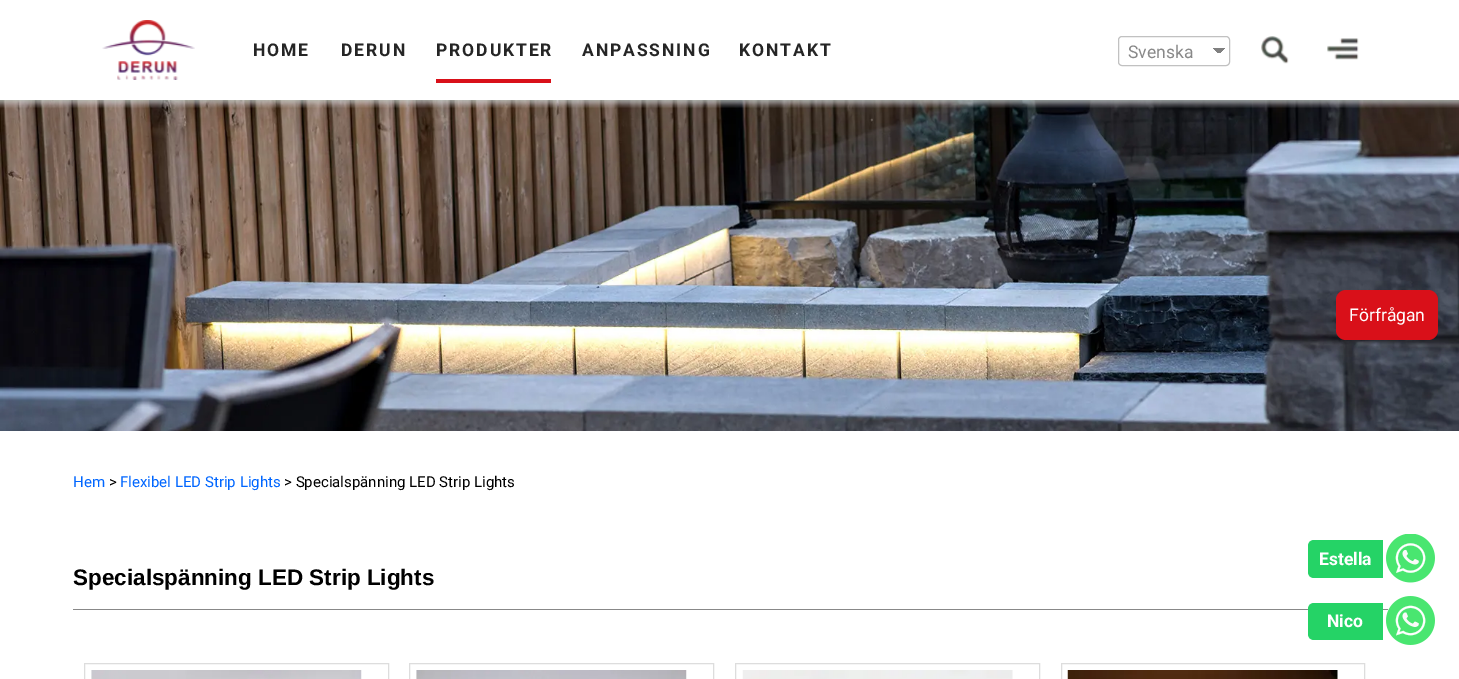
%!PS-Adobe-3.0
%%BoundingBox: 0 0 1459 679
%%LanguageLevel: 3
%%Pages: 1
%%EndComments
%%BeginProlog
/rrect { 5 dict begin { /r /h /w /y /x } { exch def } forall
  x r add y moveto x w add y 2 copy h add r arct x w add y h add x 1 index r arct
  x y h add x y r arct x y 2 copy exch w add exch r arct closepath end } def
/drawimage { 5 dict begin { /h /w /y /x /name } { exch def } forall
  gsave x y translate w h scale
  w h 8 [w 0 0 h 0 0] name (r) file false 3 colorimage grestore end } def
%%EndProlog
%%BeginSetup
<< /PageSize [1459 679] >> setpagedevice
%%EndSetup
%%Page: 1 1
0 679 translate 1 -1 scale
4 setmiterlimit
1 setgray
0 0 1459 679 rectfill
(images/1.raw) 102 20 93 60 drawimage
0.851 0.063 0.098 setrgbcolor
436 79 115 4 rectfill
gsave newpath 1219 48 moveto 1225 48 lineto 1225 53 lineto 1219 53 lineto closepath clip newpath
<< /ShadingType 2 /ColorSpace /DeviceRGB /Coords [1219 48 1225 54] /Extend [true true] /Function << /FunctionType 3 /Domain [0 1] /Functions [<< /FunctionType 2 /Domain [0 1] /C0 [0.502 0.502 0.502] /C1 [0.502 0.502 0.502] /N 1 >> << /FunctionType 2 /Domain [0 1] /C0 [1 1 1] /C1 [1 1 1] /N 1 >>] /Bounds [0.5] /Encode [0 1 0 1] >> >> shfill grestore
gsave newpath 1213 48 moveto 1219 48 lineto 1219 53 lineto 1213 53 lineto closepath clip newpath
<< /ShadingType 2 /ColorSpace /DeviceRGB /Coords [1213 54 1219 48] /Extend [true true] /Function << /FunctionType 3 /Domain [0 1] /Functions [<< /FunctionType 2 /Domain [0 1] /C0 [1 1 1] /C1 [1 1 1] /N 1 >> << /FunctionType 2 /Domain [0 1] /C0 [0.502 0.502 0.502] /C1 [0.502 0.502 0.502] /N 1 >>] /Bounds [0.5] /Encode [0 1 0 1] >> >> shfill grestore
0.757 setgray
1118.5 36.5 111 29 3.5 rrect stroke
(images/2.raw) 1261 36 28 28 drawimage
(images/3.raw) 1327 38 32 22 drawimage
(images/5.raw) 0 100 1459 331 drawimage
(images/4.raw) 0 100 1459 8 drawimage
0.851 0.063 0.098 setrgbcolor
1336 290 102 50 10 rrect fill
0.533 setgray
73 609 1315 1 rectfill
0.867 setgray
84.5 663.5 304 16 rectstroke
(images/6.raw) 91 670 271 9 drawimage
409.5 663.5 304 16 rectstroke
(images/7.raw) 416 670 271 9 drawimage
735.5 663.5 304 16 rectstroke
(images/8.raw) 742 670 271 9 drawimage
1061.5 663.5 303 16 rectstroke
(images/9.raw) 1067 670 271 9 drawimage
0.145 0.827 0.4 setrgbcolor
newpath 1314 540 moveto 1383 540 lineto 1383 578 lineto 1314 578 lineto 1310.5 578 1308 575.5 1308 572 curveto 1308 546 lineto 1308 542.5 1310.5 540 1314 540 curveto closepath fill
(images/10.raw) 1386 534 49 49 drawimage
newpath 1314 603 moveto 1383 603 lineto 1383 640 lineto 1314 640 lineto 1310.5 640 1308 637.5 1308 634 curveto 1308 609 lineto 1308 605.5 1310.5 603 1314 603 curveto closepath fill
(images/11.raw) 1386 596 49 49 drawimage
/Roboto-Bold [17.5 0 0 -17.5 0 0] selectfont
0.145 setgray
253 56 moveto 1.9 0 (HOME) ashow
341 56 moveto 1.9 0 (DERUN) ashow
436 56 moveto 1.9 0 (PRODUKTER) ashow
582 56 moveto 1.9 0 (ANPASSNING) ashow
739 56 moveto 1.9 0 (KONTAKT) ashow
/Roboto-Regular [17.5 0 0 -17.5 0 0] selectfont
0.533 setgray
1128 58 moveto (Svenska) show
1 setgray
1349 321 moveto (Förfrågan) show
/Roboto-Regular [15 0 0 -15 0 0] selectfont
0 0.4 1 setrgbcolor
73 487 moveto (Hem) show
0 setgray
109 487 moveto (>) show
0 0.4 1 setrgbcolor
120 487 moveto (Flexibel LED Strip Lights) show
0 setgray
284 487 moveto (> Specialspänning LED Strip Lights) show
/LiberationSans-Bold [22.5 0 0 -22.5 0 0] selectfont
73 585 moveto (Specialspänning LED Strip Lights) show
/Roboto-Bold [17.5 0 0 -17.5 0 0] selectfont
1 setgray
1319 565 moveto (Estella) show
1327 627 moveto (Nico) show
showpage
%%EOF
